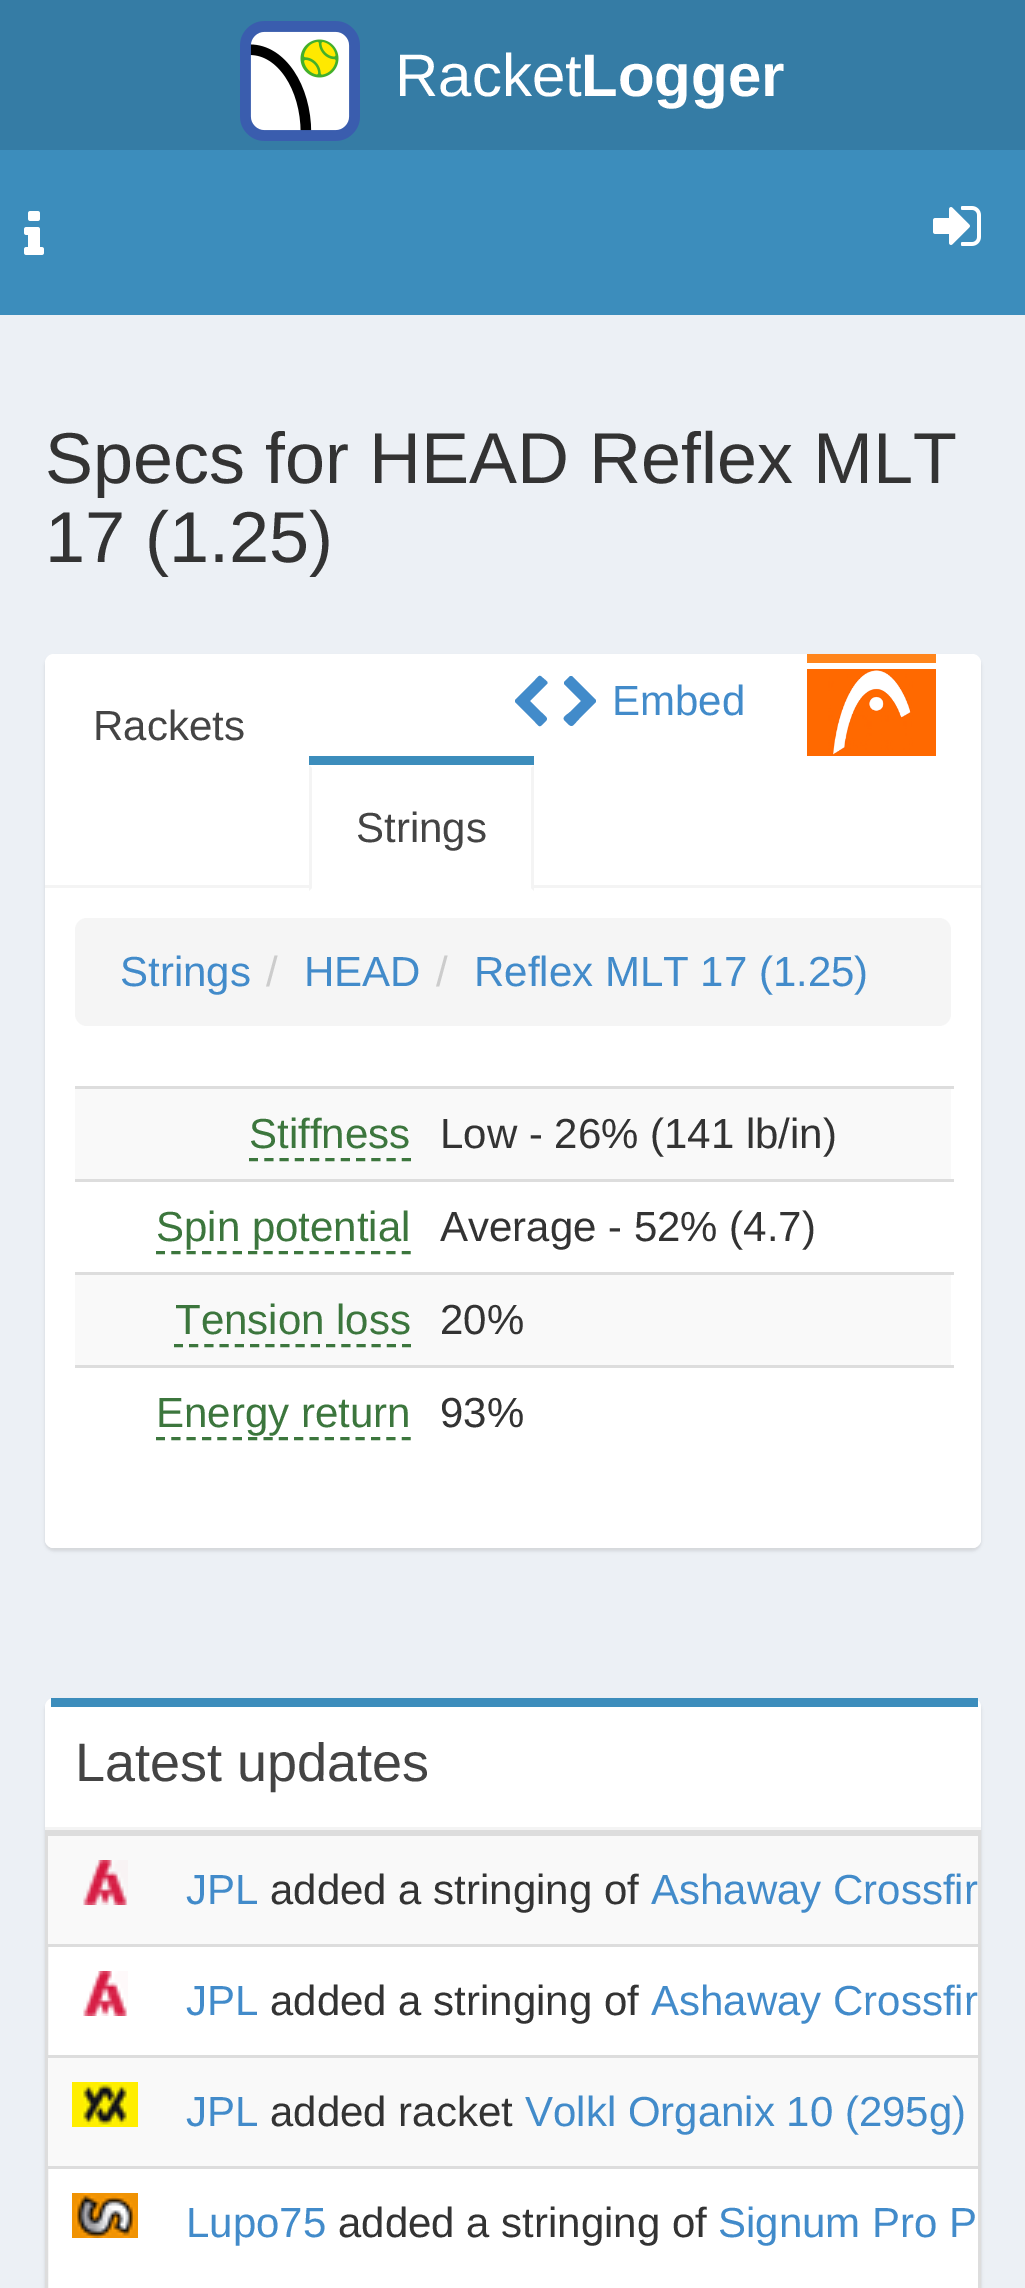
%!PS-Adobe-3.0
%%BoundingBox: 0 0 1025 2288
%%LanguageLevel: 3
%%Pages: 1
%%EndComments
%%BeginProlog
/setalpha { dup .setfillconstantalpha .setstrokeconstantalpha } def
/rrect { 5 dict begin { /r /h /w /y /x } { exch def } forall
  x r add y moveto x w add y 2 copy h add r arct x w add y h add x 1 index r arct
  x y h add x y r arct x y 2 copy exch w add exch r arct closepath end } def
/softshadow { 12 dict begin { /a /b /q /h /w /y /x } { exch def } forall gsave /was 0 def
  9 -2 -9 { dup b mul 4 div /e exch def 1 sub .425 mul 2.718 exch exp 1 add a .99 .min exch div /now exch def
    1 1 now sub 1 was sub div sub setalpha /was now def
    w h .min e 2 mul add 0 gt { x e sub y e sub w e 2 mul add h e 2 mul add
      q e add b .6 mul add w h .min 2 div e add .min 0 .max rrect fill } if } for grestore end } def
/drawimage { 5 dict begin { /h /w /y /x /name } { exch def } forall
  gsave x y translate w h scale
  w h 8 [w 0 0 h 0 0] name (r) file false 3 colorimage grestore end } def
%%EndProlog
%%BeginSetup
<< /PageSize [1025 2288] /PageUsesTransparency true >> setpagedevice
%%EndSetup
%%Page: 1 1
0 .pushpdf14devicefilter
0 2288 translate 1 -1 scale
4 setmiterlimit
0.925 0.941 0.961 setrgbcolor
0 0 1025 2288 rectfill
0.235 0.553 0.737 setrgbcolor
0 150 1025 165 rectfill
0.208 0.486 0.647 setrgbcolor
0 0 1025 150 rectfill
(images/1.raw) 240 21 120 120 drawimage
(images/2.raw) 24 211 20 44 drawimage
(images/3.raw) 933 206 48 40 drawimage
0 setgray
45 657 936 894 9 1.5 0.1 softshadow
1 setgray
45 654 936 894 9 rrect fill
1 0.522 0.106 setrgbcolor
807 654 129 9 rectfill
0.259 0.545 0.792 setrgbcolor
newpath 547 684 moveto 549 682 545 680 543 678 curveto 539 674 539 676 535 680 curveto 515 700 lineto 515 702 lineto 535 722 lineto 539 726 539 728 543 724 curveto 549 718 548 719 541 712 curveto 530 701 lineto closepath fill
newpath 596 702 moveto 596 702 596 700 596 700 curveto 572 676 lineto 572 676 570 676 570 676 curveto 564 682 lineto 564 682 564 684 564 684 curveto 581 701 lineto 570 712 lineto 567 715 561 717 565 721 curveto 573 729 571 727 580 718 curveto closepath fill
(images/4.raw) 807 669 129 87 drawimage
0.957 setgray
45 885 936 3 rectfill
0.235 0.553 0.737 setrgbcolor
309 756 225 9 rectfill
1 setgray
309 885 225 3 rectfill
newpath 45 888 moveto 981 888 lineto 981 1539 lineto 981 1544 977 1548 972 1548 curveto 54 1548 lineto 49 1548 45 1544 45 1539 curveto closepath fill
0.957 setgray
newpath 534 765 moveto 534 891 lineto 531 888 lineto 531 768 lineto closepath fill
newpath 309 891 moveto 309 765 lineto 312 768 lineto 312 888 lineto closepath fill
0.961 setgray
75 918 876 108 12 rrect fill
0.976 setgray
75 1089 876 90 rectfill
0.235 0.463 0.239 setrgbcolor
3 setlinewidth
[9 6.3] 0 setdash
newpath 249 1159.5 moveto 411 1159.5 lineto stroke
0.867 setgray
75 1086 879 3 rectfill
0.235 0.463 0.239 setrgbcolor
[9 6.36] 0 setdash
newpath 156 1252.5 moveto 411 1252.5 lineto stroke
0.867 setgray
75 1179 879 3 rectfill
0.976 setgray
75 1275 876 90 rectfill
0.235 0.463 0.239 setrgbcolor
[9 6.21] 0 setdash
newpath 174 1345.5 moveto 411 1345.5 lineto stroke
0.867 setgray
75 1272 879 3 rectfill
0.235 0.463 0.239 setrgbcolor
[9 6.36] 0 setdash
newpath 156 1438.5 moveto 411 1438.5 lineto stroke
0.867 setgray
75 1365 879 3 rectfill
0 setgray
45 1701 936 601 9 1.5 0.1 softshadow
1 setgray
45 1698 936 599 9 rrect fill
0.235 0.553 0.737 setrgbcolor
51 1698 927 9 rectfill
0.957 setgray
45 1827 936 3 rectfill
0.867 setgray
[] 0 setdash
46.5 1831.5 933 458 rectstroke
0.976 setgray
48 1836 930 108 rectfill
(images/5.raw) 83 1860 45 45 drawimage
0.867 setgray
48 1833 930 3 rectfill
(images/6.raw) 83 1971 45 45 drawimage
48 1944 930 3 rectfill
0.976 setgray
48 2058 930 108 rectfill
(images/7.raw) 72 2082 66 45 drawimage
0.867 setgray
48 2055 930 3 rectfill
(images/8.raw) 72 2193 66 45 drawimage
48 2166 930 3 rectfill
/LiberationSans-Regular [60 0 0 -60 0 0] selectfont
1 setgray
395 96 moveto (Racket) show
/LiberationSans-Bold [60 0 0 -60 0 0] selectfont
581 96 moveto (Logger) show
/LiberationSans-Regular [72 0 0 -72 0 0] selectfont
0.2 setgray
45 483 moveto (Specs for HEAD Reflex MLT) show
45 562 moveto (17 \(1.25\)) show
/LiberationSans-Regular [42 0 0 -42 0 0] selectfont
0.259 0.545 0.792 setrgbcolor
612 715 moveto (Embed) show
0.267 setgray
93 740 moveto (Rackets) show
356 842 moveto (Strings) show
0.259 0.545 0.792 setrgbcolor
120 986 moveto (Strings) show
0.8 setgray
266 986 moveto (/) show
0.259 0.545 0.792 setrgbcolor
304 986 moveto (HEAD) show
0.8 setgray
436 986 moveto (/) show
0.259 0.545 0.792 setrgbcolor
474 986 moveto (Reflex MLT 17 \(1.25\)) show
0.235 0.463 0.239 setrgbcolor
249 1148 moveto (Stiffness) show
0.2 setgray
440 1148 moveto (Low - 26% \(141 lb/in\)) show
0.235 0.463 0.239 setrgbcolor
156 1241 moveto (Spin potential) show
0.2 setgray
440 1241 moveto (Average - 52% \(4.7\)) show
0.235 0.463 0.239 setrgbcolor
175 1334 moveto (Tension loss) show
0.2 setgray
440 1334 moveto (20%) show
0.235 0.463 0.239 setrgbcolor
156 1427 moveto (Energy return) show
0.2 setgray
440 1427 moveto (93%) show
/LiberationSans-Regular [54 0 0 -54 0 0] selectfont
0.267 setgray
75 1781 moveto (Latest updates) show
/LiberationSans-Regular [42 0 0 -42 0 0] selectfont
0.259 0.545 0.792 setrgbcolor
186 1904 moveto (JPL) show
0.2 setgray
270 1904 moveto (added a stringing of) show
0.259 0.545 0.792 setrgbcolor
651 1904 moveto (Ashaway Crossfir) show
186 2015 moveto (JPL) show
0.2 setgray
270 2015 moveto (added a stringing of) show
0.259 0.545 0.792 setrgbcolor
651 2015 moveto (Ashaway Crossfir) show
186 2126 moveto (JPL) show
0.2 setgray
270 2126 moveto (added racket) show
0.259 0.545 0.792 setrgbcolor
525 2126 moveto (Volkl Organix 10 \(295g\)) show
186 2237 moveto (Lupo75) show
0.2 setgray
338 2237 moveto (added a stringing of) show
0.259 0.545 0.792 setrgbcolor
718 2237 moveto (Signum Pro P) show
.poppdf14devicefilter showpage
%%EOF
